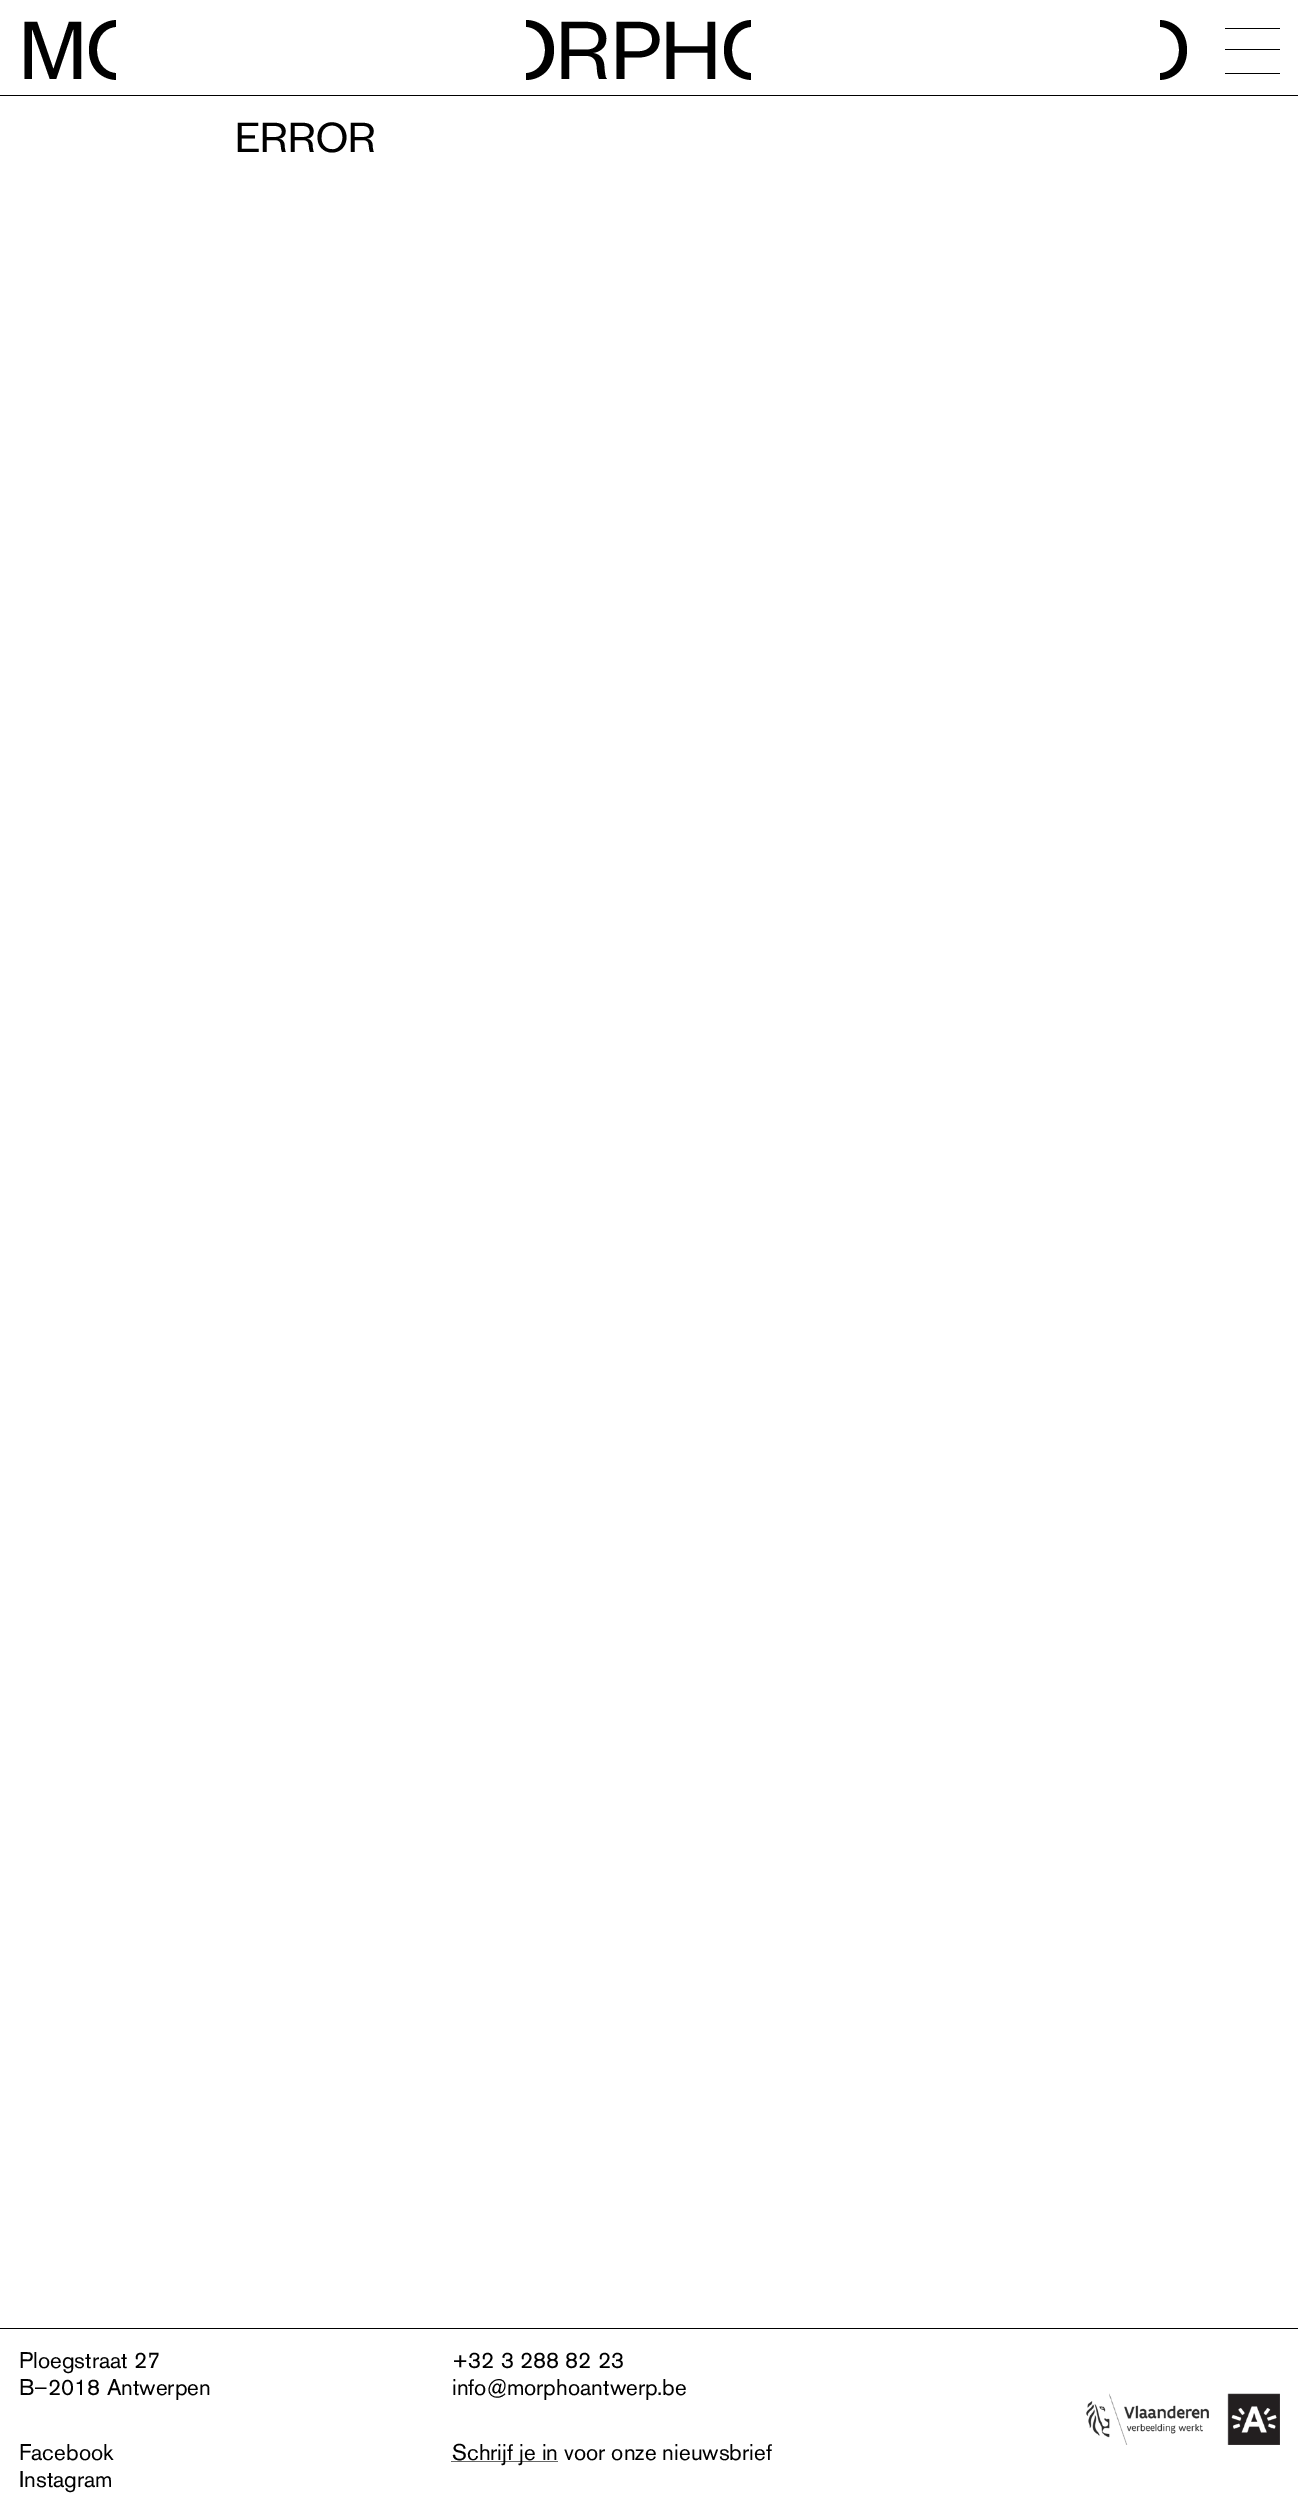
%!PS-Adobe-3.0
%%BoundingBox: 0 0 1298 2511
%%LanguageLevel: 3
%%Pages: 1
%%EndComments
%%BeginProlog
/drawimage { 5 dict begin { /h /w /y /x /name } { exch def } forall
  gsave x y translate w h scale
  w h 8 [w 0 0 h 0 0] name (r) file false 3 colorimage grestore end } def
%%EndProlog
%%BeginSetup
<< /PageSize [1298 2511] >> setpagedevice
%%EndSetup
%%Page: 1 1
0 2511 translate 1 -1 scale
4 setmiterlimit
1 setgray
0 0 1298 2511 rectfill
0 setgray
0 95 1298 1 rectfill
newpath 146 50 moveto 146 90 89 90 89 50 curveto 89 10 146 10 146 50 curveto closepath 138 50 moveto 138 19 97 19 97 50 curveto 97 81 138 81 138 50 curveto closepath fill
newpath 554 50 moveto 554 90 497 90 497 50 curveto 497 10 554 10 554 50 curveto closepath 545 50 moveto 545 19 505 19 505 50 curveto 505 81 545 81 545 50 curveto closepath fill
1 setgray
116 20 410 60 rectfill
0 setgray
newpath 781 50 moveto 781 90 724 90 724 50 curveto 724 10 781 10 781 50 curveto closepath 773 50 moveto 773 19 732 19 732 50 curveto 732 81 773 81 773 50 curveto closepath fill
newpath 1187 50 moveto 1187 90 1130 90 1130 50 curveto 1130 10 1187 10 1187 50 curveto closepath 1179 50 moveto 1179 19 1139 19 1139 50 curveto 1139 81 1179 81 1179 50 curveto closepath fill
1 setgray
751 20 409 60 rectfill
0 setgray
1225 28 55 1 rectfill
1225 49 55 1 rectfill
1225 73 55 1 rectfill
0 2328 1298 1 rectfill
0.4 setgray
451 2461 107 1 rectfill
(images/1.raw) 1086 2393 194 52 drawimage
/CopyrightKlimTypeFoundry-Regular [91 0 0 -91 0 0] selectfont
0 setgray
19 79 moveto (M) show
556 79 moveto (RPH) show
/CopyrightKlimTypeFoundry-Regular [46.5 0 0 -46.5 0 0] selectfont
235 152 moveto (ERROR) show
/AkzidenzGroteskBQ-Medium [22.5 0 0 -22.5 0 0] selectfont
19 2368 moveto (Ploegstraat 27) show
19 2395 moveto (B–2018 Antwerpen) show
452 2368 moveto (+32 3 288 82 23) show
452 2395 moveto (info@morphoantwerp.be) show
19 2460 moveto (Facebook) show
19 2487 moveto (Instagram) show
452 2460 moveto (Schrijf je in voor onze nieuwsbrief) show
showpage
%%EOF
